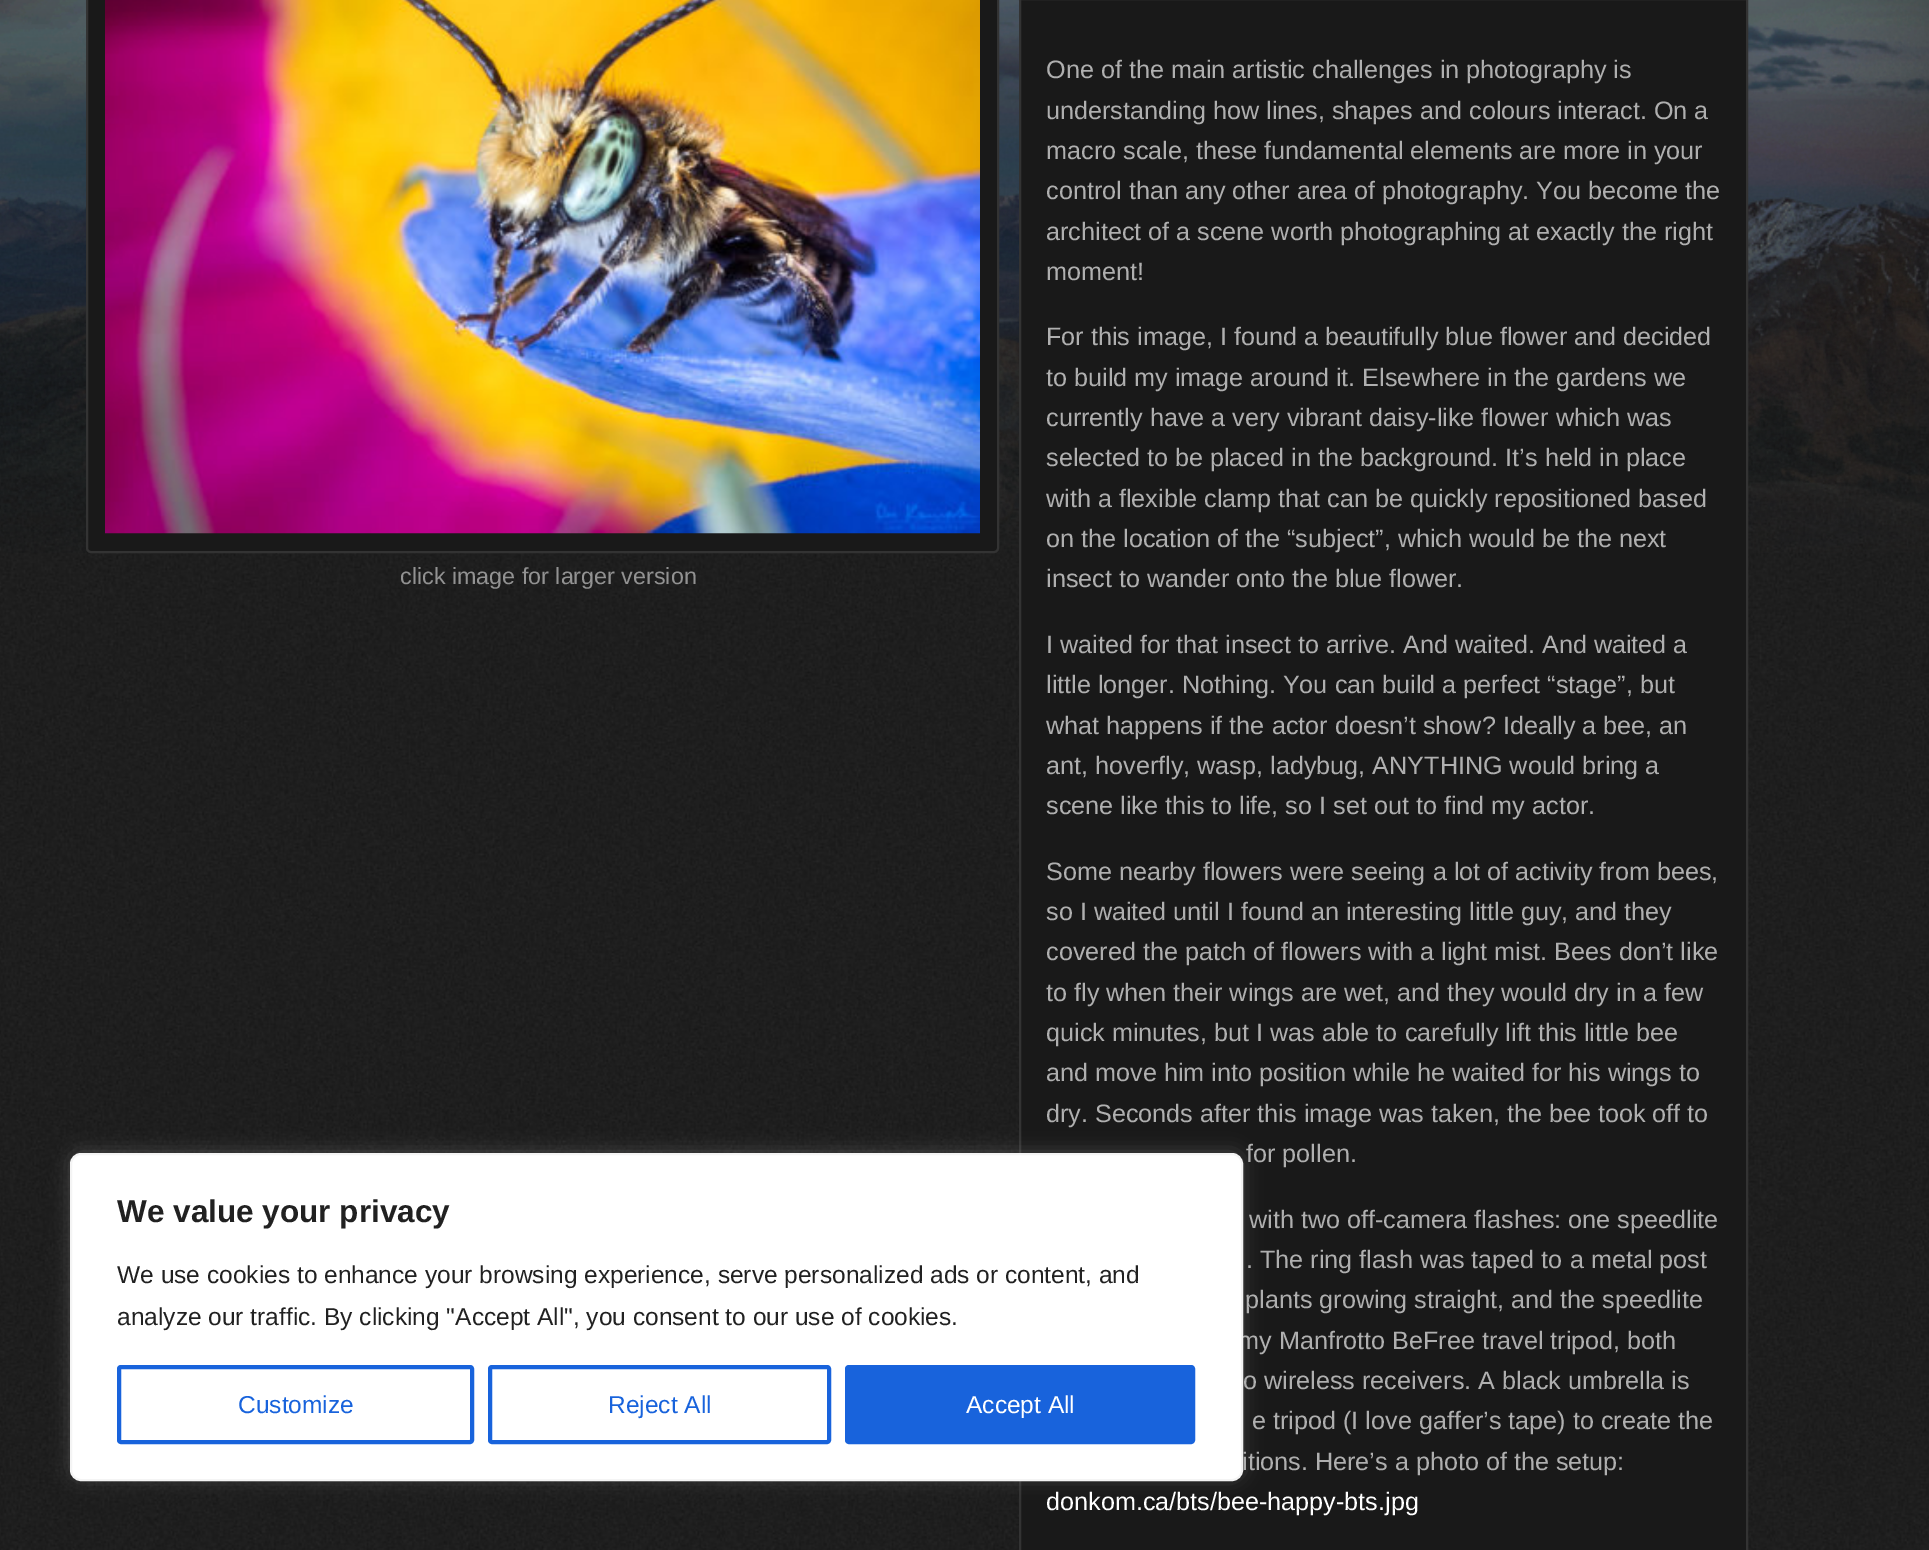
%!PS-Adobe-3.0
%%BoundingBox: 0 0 1929 1550
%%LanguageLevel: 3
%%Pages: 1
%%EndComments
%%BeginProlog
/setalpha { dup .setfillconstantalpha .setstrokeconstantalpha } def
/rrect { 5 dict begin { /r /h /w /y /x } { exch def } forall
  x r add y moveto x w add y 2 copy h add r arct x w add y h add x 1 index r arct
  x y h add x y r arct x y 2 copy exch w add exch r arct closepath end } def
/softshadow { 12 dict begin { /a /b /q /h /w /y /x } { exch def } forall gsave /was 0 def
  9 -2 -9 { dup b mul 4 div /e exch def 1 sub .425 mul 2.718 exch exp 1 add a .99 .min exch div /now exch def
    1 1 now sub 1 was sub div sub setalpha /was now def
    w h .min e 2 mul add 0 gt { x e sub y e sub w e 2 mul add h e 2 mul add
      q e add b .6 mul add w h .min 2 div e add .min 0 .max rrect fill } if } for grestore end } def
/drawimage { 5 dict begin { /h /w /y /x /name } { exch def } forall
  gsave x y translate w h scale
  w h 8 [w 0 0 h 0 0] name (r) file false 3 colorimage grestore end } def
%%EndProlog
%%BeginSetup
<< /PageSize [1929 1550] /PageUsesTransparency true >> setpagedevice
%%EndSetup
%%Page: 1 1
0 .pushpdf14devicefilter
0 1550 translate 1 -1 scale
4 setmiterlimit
1 setgray
0 0 1929 1550 rectfill
(images/1.raw) 0 0 1929 1550 drawimage
(images/2.raw) 0 0 1929 553 drawimage
0.098 setgray
87 -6 911 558 4 rrect gsave fill grestore
0.2 setgray
2 setlinewidth
stroke
(images/3.raw) 105 0 875 534 drawimage
0.098 setgray
newpath 1020 -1 moveto 1747 -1 lineto 1747 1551 lineto 1020 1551 lineto closepath gsave fill grestore
0.2 setgray
stroke
0.675 0.671 0.671 setrgbcolor
70 1152 1173 327 11 9 0.3 softshadow
/LiberationSans-Regular [23.3 0 0 -23.3 0 0] selectfont
0.573 setgray
400 584 moveto (click image for larger version) show
/LiberationSans-Regular [25.2 0 0 -25.2 0 0] selectfont
0.686 setgray
1046 78 moveto (One of the main artistic challenges in photography is) show
1046 119 moveto (understanding how lines, shapes and colours interact. On a) show
1046 159 moveto (macro scale, these fundamental elements are more in your) show
1046 199 moveto (control than any other area of photography. You become the) show
1046 240 moveto (architect of a scene worth photographing at exactly the right) show
1046 280 moveto (moment!) show
1046 345 moveto (For this image, I found a beautifully blue flower and decided) show
1046 386 moveto (to build my image around it. Elsewhere in the gardens we) show
1046 426 moveto (currently have a very vibrant daisy-like flower which was) show
1046 466 moveto (selected to be placed in the background. It’s held in place) show
1046 507 moveto (with a flexible clamp that can be quickly repositioned based) show
1046 547 moveto (on the location of the “subject”, which would be the next) show
1046 587 moveto (insect to wander onto the blue flower.) show
1046 653 moveto (I waited for that insect to arrive. And waited. And waited a) show
1046 693 moveto (little longer. Nothing. You can build a perfect “stage”, but) show
1046 734 moveto (what happens if the actor doesn’t show? Ideally a bee, an) show
1046 774 moveto (ant, hoverfly, wasp, ladybug, ANYTHING would bring a) show
1046 814 moveto (scene like this to life, so I set out to find my actor.) show
1046 880 moveto (Some nearby flowers were seeing a lot of activity from bees,) show
1046 920 moveto (so I waited until I found an interesting little guy, and they) show
1046 960 moveto (covered the patch of flowers with a light mist. Bees don’t like) show
1046 1001 moveto (to fly when their wings are wet, and they would dry in a few) show
1046 1041 moveto (quick minutes, but I was able to carefully lift this little bee) show
1046 1081 moveto (and move him into position while he waited for his wings to) show
1046 1122 moveto (dry. Seconds after this image was taken, the bee took off to) show
1246 1162 moveto (for pollen.) show
1249 1228 moveto (with two off-camera flashes: one speedlite) show
1246 1268 moveto (. The ring flash was taped to a metal post) show
1245 1308 moveto (plants growing straight, and the speedlite) show
1238 1349 moveto (my Manfrotto BeFree travel tripod, both) show
1243 1389 moveto (o wireless receivers. A black umbrella is) show
1252 1429 moveto (e tripod \(I love gaffer’s tape\) to create the) show
1242 1470 moveto (itions. Here’s a photo of the setup:) show
1 setgray
1046 1510 moveto (donkom.ca/bts/bee-happy-bts.jpg) show
71 1154 1171 326 10 rrect gsave fill grestore
0.957 setgray
stroke
/LiberationSans-Bold [31.5 0 0 -31.5 0 0] selectfont
0.129 setgray
117 1222 moveto (We value your privacy) show
/LiberationSans-Regular [24.5 0 0 -24.5 0 0] selectfont
117 1283 moveto (We use cookies to enhance your browsing experience, serve personalized ads or content, and) show
117 1325 moveto (analyze our traffic. By clicking "Accept All", you consent to our use of cookies.) show
0.094 0.388 0.863 setrgbcolor
4 setlinewidth
119 1367 353 75 2 rrect stroke
238 1413 moveto (Customize) show
490 1367 339 75 2 rrect stroke
608 1413 moveto (Reject All) show
847 1367 346 75 2 rrect gsave fill grestore
stroke
1 setgray
966 1413 moveto (Accept All) show
.poppdf14devicefilter showpage
%%EOF
